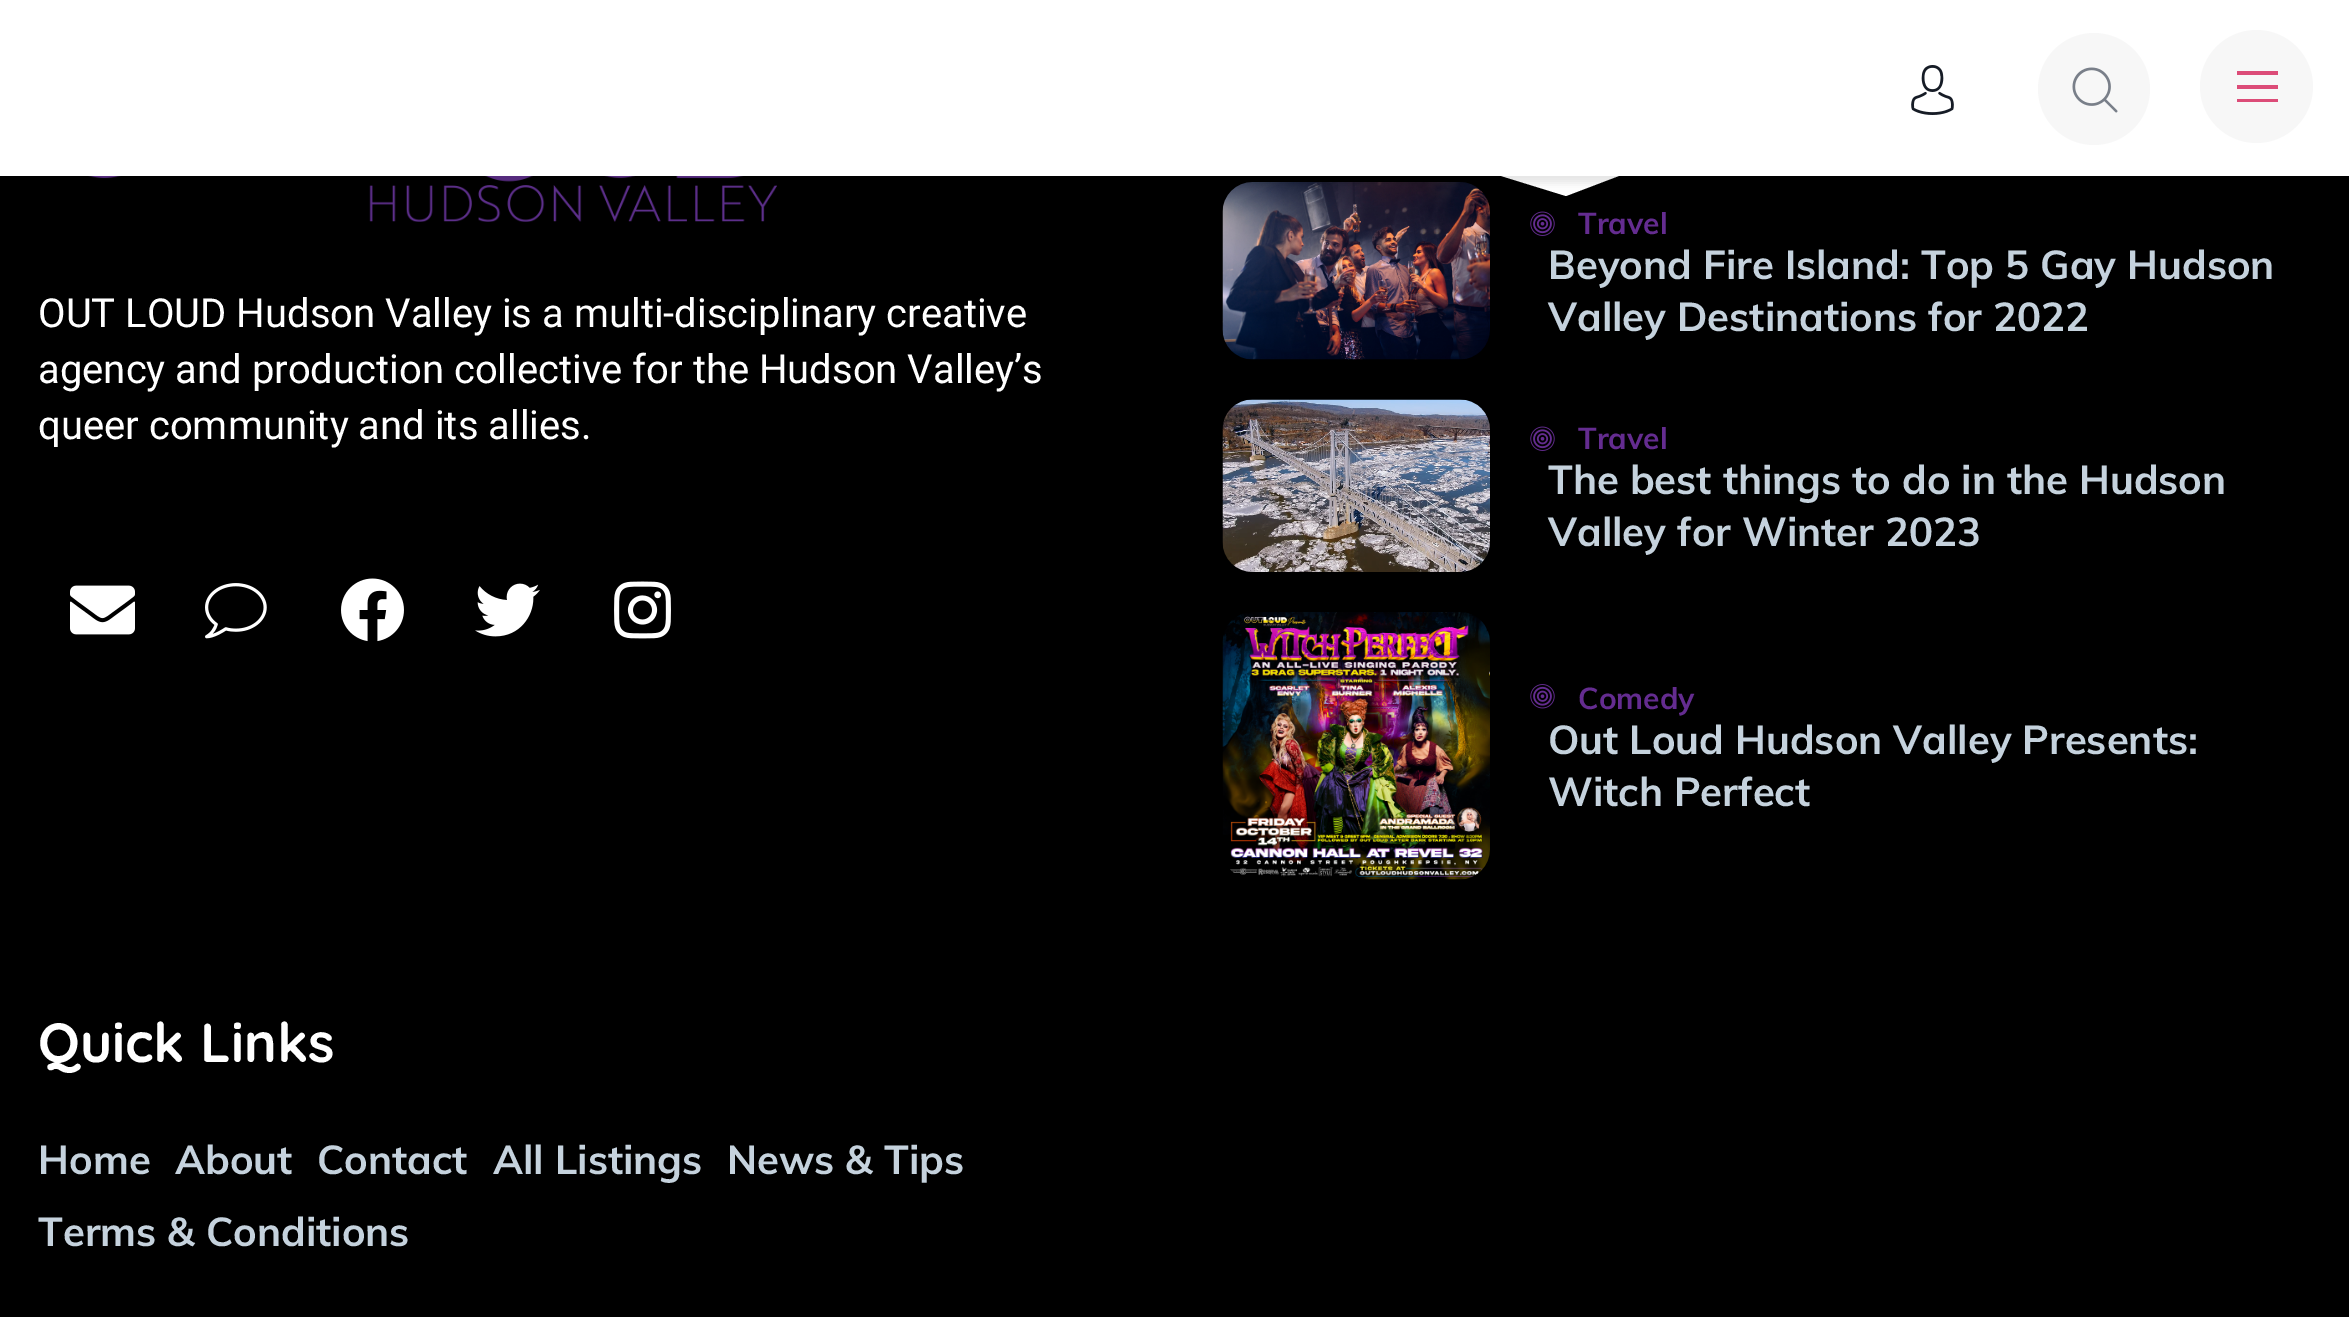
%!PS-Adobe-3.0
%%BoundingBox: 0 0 2349 1317
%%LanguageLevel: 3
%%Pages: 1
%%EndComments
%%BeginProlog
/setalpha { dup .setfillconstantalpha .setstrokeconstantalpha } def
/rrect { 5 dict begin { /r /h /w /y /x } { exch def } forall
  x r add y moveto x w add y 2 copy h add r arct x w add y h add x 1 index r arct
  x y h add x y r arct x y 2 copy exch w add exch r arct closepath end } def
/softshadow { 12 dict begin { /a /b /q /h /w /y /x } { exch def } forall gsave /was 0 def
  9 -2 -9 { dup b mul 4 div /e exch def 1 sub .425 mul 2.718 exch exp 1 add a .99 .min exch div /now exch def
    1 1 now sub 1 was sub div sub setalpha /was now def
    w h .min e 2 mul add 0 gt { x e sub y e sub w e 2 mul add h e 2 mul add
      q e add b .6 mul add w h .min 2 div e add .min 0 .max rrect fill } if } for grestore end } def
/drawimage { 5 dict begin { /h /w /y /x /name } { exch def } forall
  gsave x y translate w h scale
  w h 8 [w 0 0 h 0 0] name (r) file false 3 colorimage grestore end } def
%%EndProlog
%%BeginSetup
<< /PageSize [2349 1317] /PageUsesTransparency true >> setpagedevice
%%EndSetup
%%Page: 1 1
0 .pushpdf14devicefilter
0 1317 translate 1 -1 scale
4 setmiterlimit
0 setgray
0 0 2349 1317 rectfill
1 setgray
newpath 559 25 moveto 838 -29 lineto 1566 196 lineto 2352 -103 lineto 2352 -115 lineto -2 -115 lineto -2 -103 lineto fill
(images/3.raw) 88 176 689 46 drawimage
(images/9.raw) 1222 182 268 178 drawimage
0 setgray
5 8 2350 175 0 4 0.1 softshadow
1 setgray
0 0 2349 176 rectfill
(images/1.raw) 1911 65 43 50 drawimage
0.969 setgray
newpath 2094 89 56 0 360 arc closepath fill
(images/2.raw) 2072 67 46 46 drawimage
newpath 2256.5 86.5 56.5 0 360 arc closepath fill
0.863 0.298 0.471 setrgbcolor
newpath 2237 71 moveto 2237 75 lineto 2278 75 lineto 2278 71 lineto closepath 2237 85 moveto 2237 89 lineto 2278 89 lineto 2278 85 lineto closepath 2237 99 moveto 2237 102 lineto 2278 102 lineto 2278 99 lineto closepath fill
(images/4.raw) 70 585 65 50 drawimage
(images/5.raw) 205 583 62 56 drawimage
(images/6.raw) 341 578 63 64 drawimage
(images/7.raw) 475 583 65 54 drawimage
(images/8.raw) 614 581 57 58 drawimage
(images/10.raw) 1530 211 25 25 drawimage
(images/11.raw) 1222 399 268 173 drawimage
(images/10.raw) 1530 426 25 25 drawimage
(images/12.raw) 1222 612 268 268 drawimage
(images/13.raw) 1530 684 25 25 drawimage
/Roboto-Regular [40 0 0 -40 0 0] selectfont
1 setgray
38 327 moveto (OUT LOUD Hudson Valley is a multi-disciplinary creative) show
38 383 moveto (agency and production collective for the Hudson Valley’s) show
38 439 moveto (queer community and its allies.) show
/Muli-Bold [30 0 0 -30 0 0] selectfont
0.392 0.173 0.565 setrgbcolor
1578 234 moveto (Travel) show
/Muli-Bold [40 0 0 -40 0 0] selectfont
0.773 0.824 0.867 setrgbcolor
1548 279 moveto (Beyond Fire Island: Top 5 Gay Hudson) show
1548 331 moveto (Valley Destinations for 2022) show
/Muli-Bold [30 0 0 -30 0 0] selectfont
0.392 0.173 0.565 setrgbcolor
1578 449 moveto (Travel) show
/Muli-Bold [40 0 0 -40 0 0] selectfont
0.773 0.824 0.867 setrgbcolor
1548 494 moveto (The best things to do in the Hudson) show
1548 546 moveto (Valley for Winter 2023) show
/Muli-Bold [30 0 0 -30 0 0] selectfont
0.392 0.173 0.565 setrgbcolor
1578 709 moveto (Comedy) show
/Muli-Bold [40 0 0 -40 0 0] selectfont
0.773 0.824 0.867 setrgbcolor
1548 754 moveto (Out Loud Hudson Valley Presents:) show
1548 806 moveto (Witch Perfect) show
/Quicksand-Bold [55 0 0 -55 0 0] selectfont
1 setgray
38 1062 moveto (Quick Links) show
/Muli-Bold [40 0 0 -40 0 0] selectfont
0.773 0.824 0.867 setrgbcolor
38 1174 moveto (Home) show
175 1174 moveto (About) show
317 1174 moveto (Contact) show
493 1174 moveto (All Listings) show
727 1174 moveto (News & Tips) show
38 1246 moveto (Terms & Conditions) show
.poppdf14devicefilter showpage
%%EOF
